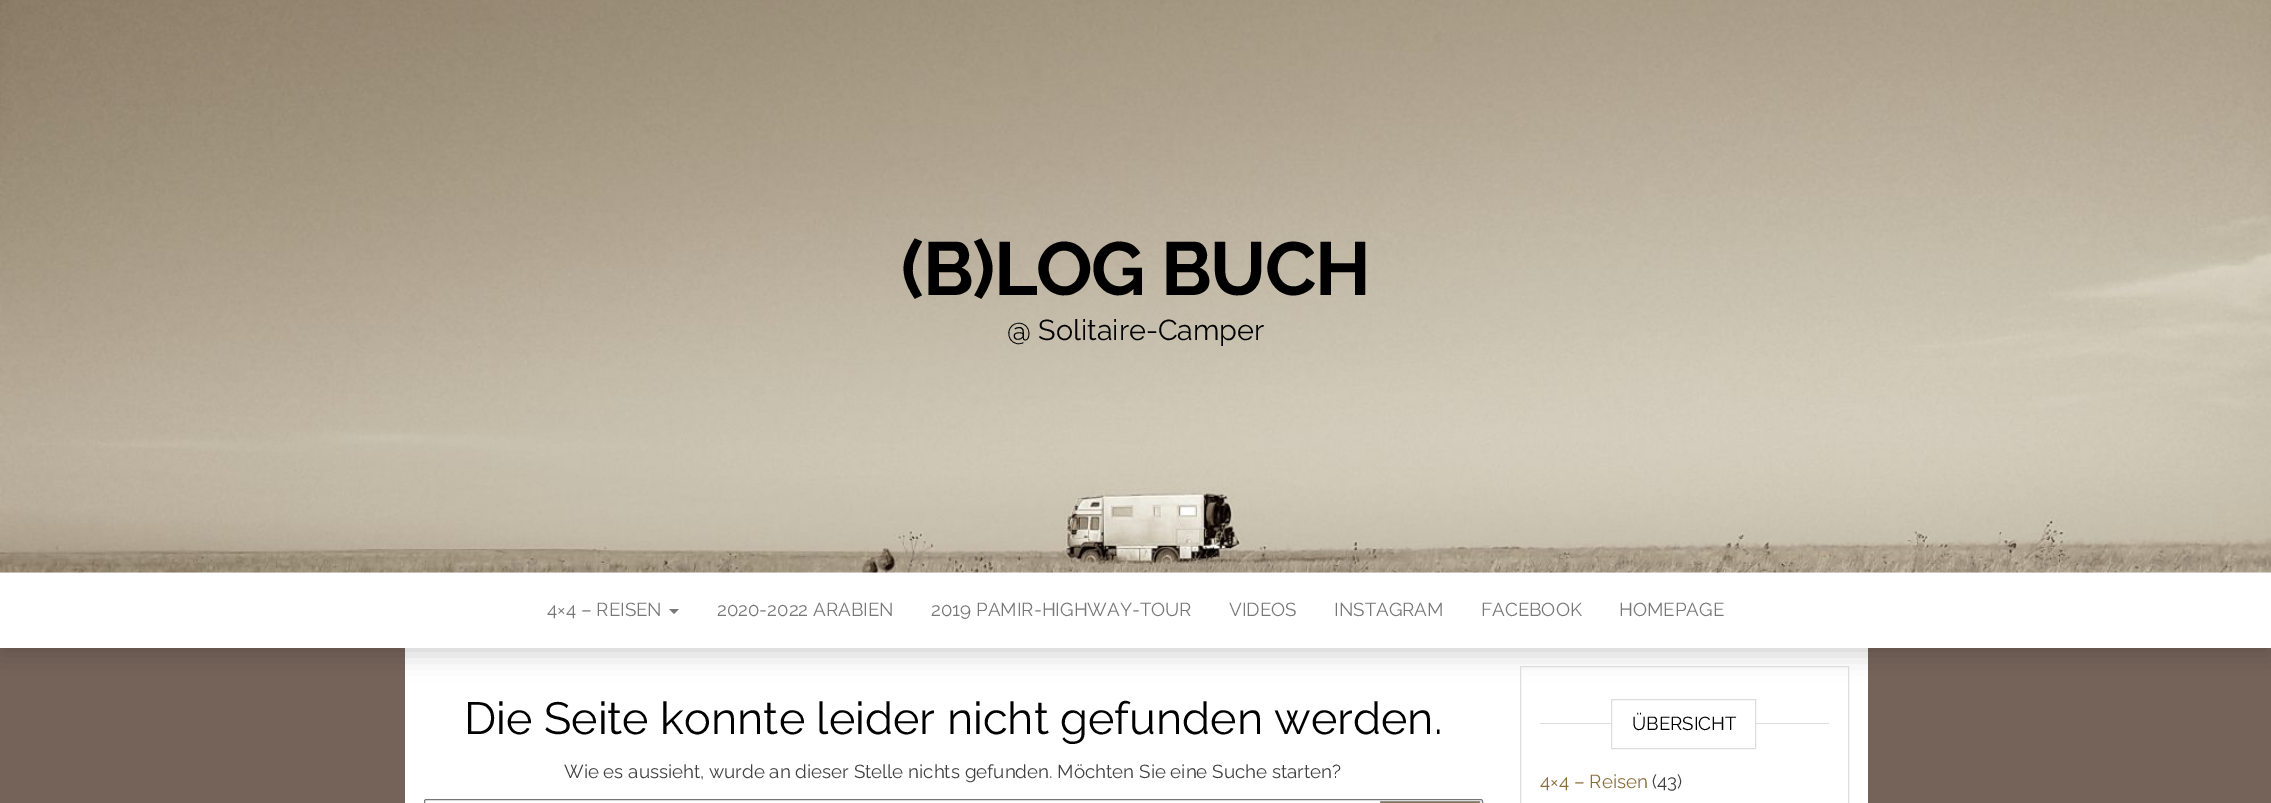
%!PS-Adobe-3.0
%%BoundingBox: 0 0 2271 803
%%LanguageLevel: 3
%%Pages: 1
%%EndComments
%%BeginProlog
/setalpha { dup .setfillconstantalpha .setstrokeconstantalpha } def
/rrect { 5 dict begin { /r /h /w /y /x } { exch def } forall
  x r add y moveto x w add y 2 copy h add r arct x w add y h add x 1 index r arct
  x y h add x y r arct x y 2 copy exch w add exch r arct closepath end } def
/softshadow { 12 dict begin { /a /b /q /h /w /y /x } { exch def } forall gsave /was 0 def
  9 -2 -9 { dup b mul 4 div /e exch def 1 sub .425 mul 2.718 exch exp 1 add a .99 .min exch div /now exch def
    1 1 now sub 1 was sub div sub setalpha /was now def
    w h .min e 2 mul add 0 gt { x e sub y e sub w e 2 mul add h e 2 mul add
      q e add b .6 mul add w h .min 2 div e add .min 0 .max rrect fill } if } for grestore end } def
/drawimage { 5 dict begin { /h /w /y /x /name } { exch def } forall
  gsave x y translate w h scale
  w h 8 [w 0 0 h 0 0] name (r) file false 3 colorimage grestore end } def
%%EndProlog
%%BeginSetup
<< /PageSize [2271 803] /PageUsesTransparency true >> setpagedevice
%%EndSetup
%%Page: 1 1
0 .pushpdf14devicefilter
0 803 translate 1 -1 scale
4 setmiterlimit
0.459 0.388 0.349 setrgbcolor
0 0 2271 803 rectfill
1 setgray
0 572 2271 1 rectfill
(images/1.raw) 0 0 2271 573 drawimage
405 648 1463 155 rectfill
0 setgray
1 583 2269 72 0 12 0.17 softshadow
1 setgray
0 573 2271 75 rectfill
0.467 setgray
newpath 669 609 moveto 679 609 lineto 674 614 lineto closepath fill
0.463 setgray
424.5 799.5 1058 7 2 rrect stroke
0.541 0.427 0.231 setrgbcolor
newpath 1380.5 801.5 moveto 1479.5 801.5 lineto 1479.5 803.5 lineto 1380.5 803.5 lineto closepath gsave fill grestore
0.557 setgray
stroke
0.867 setgray
1520.5 666.5 328 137 rectstroke
1540 723 289 1 rectfill
1 setgray
1612 723 143 1 rectfill
0.867 setgray
1611.5 699.5 144 49 rectstroke
/Raleway-Bold [75 0 0 -75 0 0] selectfont
0 setgray
901 295 moveto -1.5 0 (\(B\)LOG BUCH) ashow
/Raleway-Regular [28.75 0 0 -28.75 0 0] selectfont
1007 340 moveto (@ Solitaire-Camper) show
/Raleway-Regular [18.75 0 0 -18.75 0 0] selectfont
0.467 setgray
547 616 moveto (4×4 – REISEN) show
717 616 moveto (2020-2022 ARABIEN) show
931 616 moveto (2019 PAMIR-HIGHWAY-TOUR) show
1229 616 moveto (VIDEOS) show
1334 616 moveto (INSTAGRAM) show
1481 616 moveto (FACEBOOK) show
1619 616 moveto (HOMEPAGE) show
/Raleway-Regular [45 0 0 -45 0 0] selectfont
0 setgray
464 734 moveto (Die Seite konnte leider nicht gefunden werden.) show
/Raleway-Regular [18.75 0 0 -18.75 0 0] selectfont
0.251 setgray
564 778 moveto (Wie es aussieht, wurde an dieser Stelle nichts gefunden. Möchten Sie eine Suche starten?) show
0 setgray
1632 730 moveto (ÜBERSICHT) show
0.541 0.427 0.231 setrgbcolor
1540 788 moveto (4×4 – Reisen) show
0.251 setgray
1652 788 moveto (\(43\)) show
.poppdf14devicefilter showpage
%%EOF
